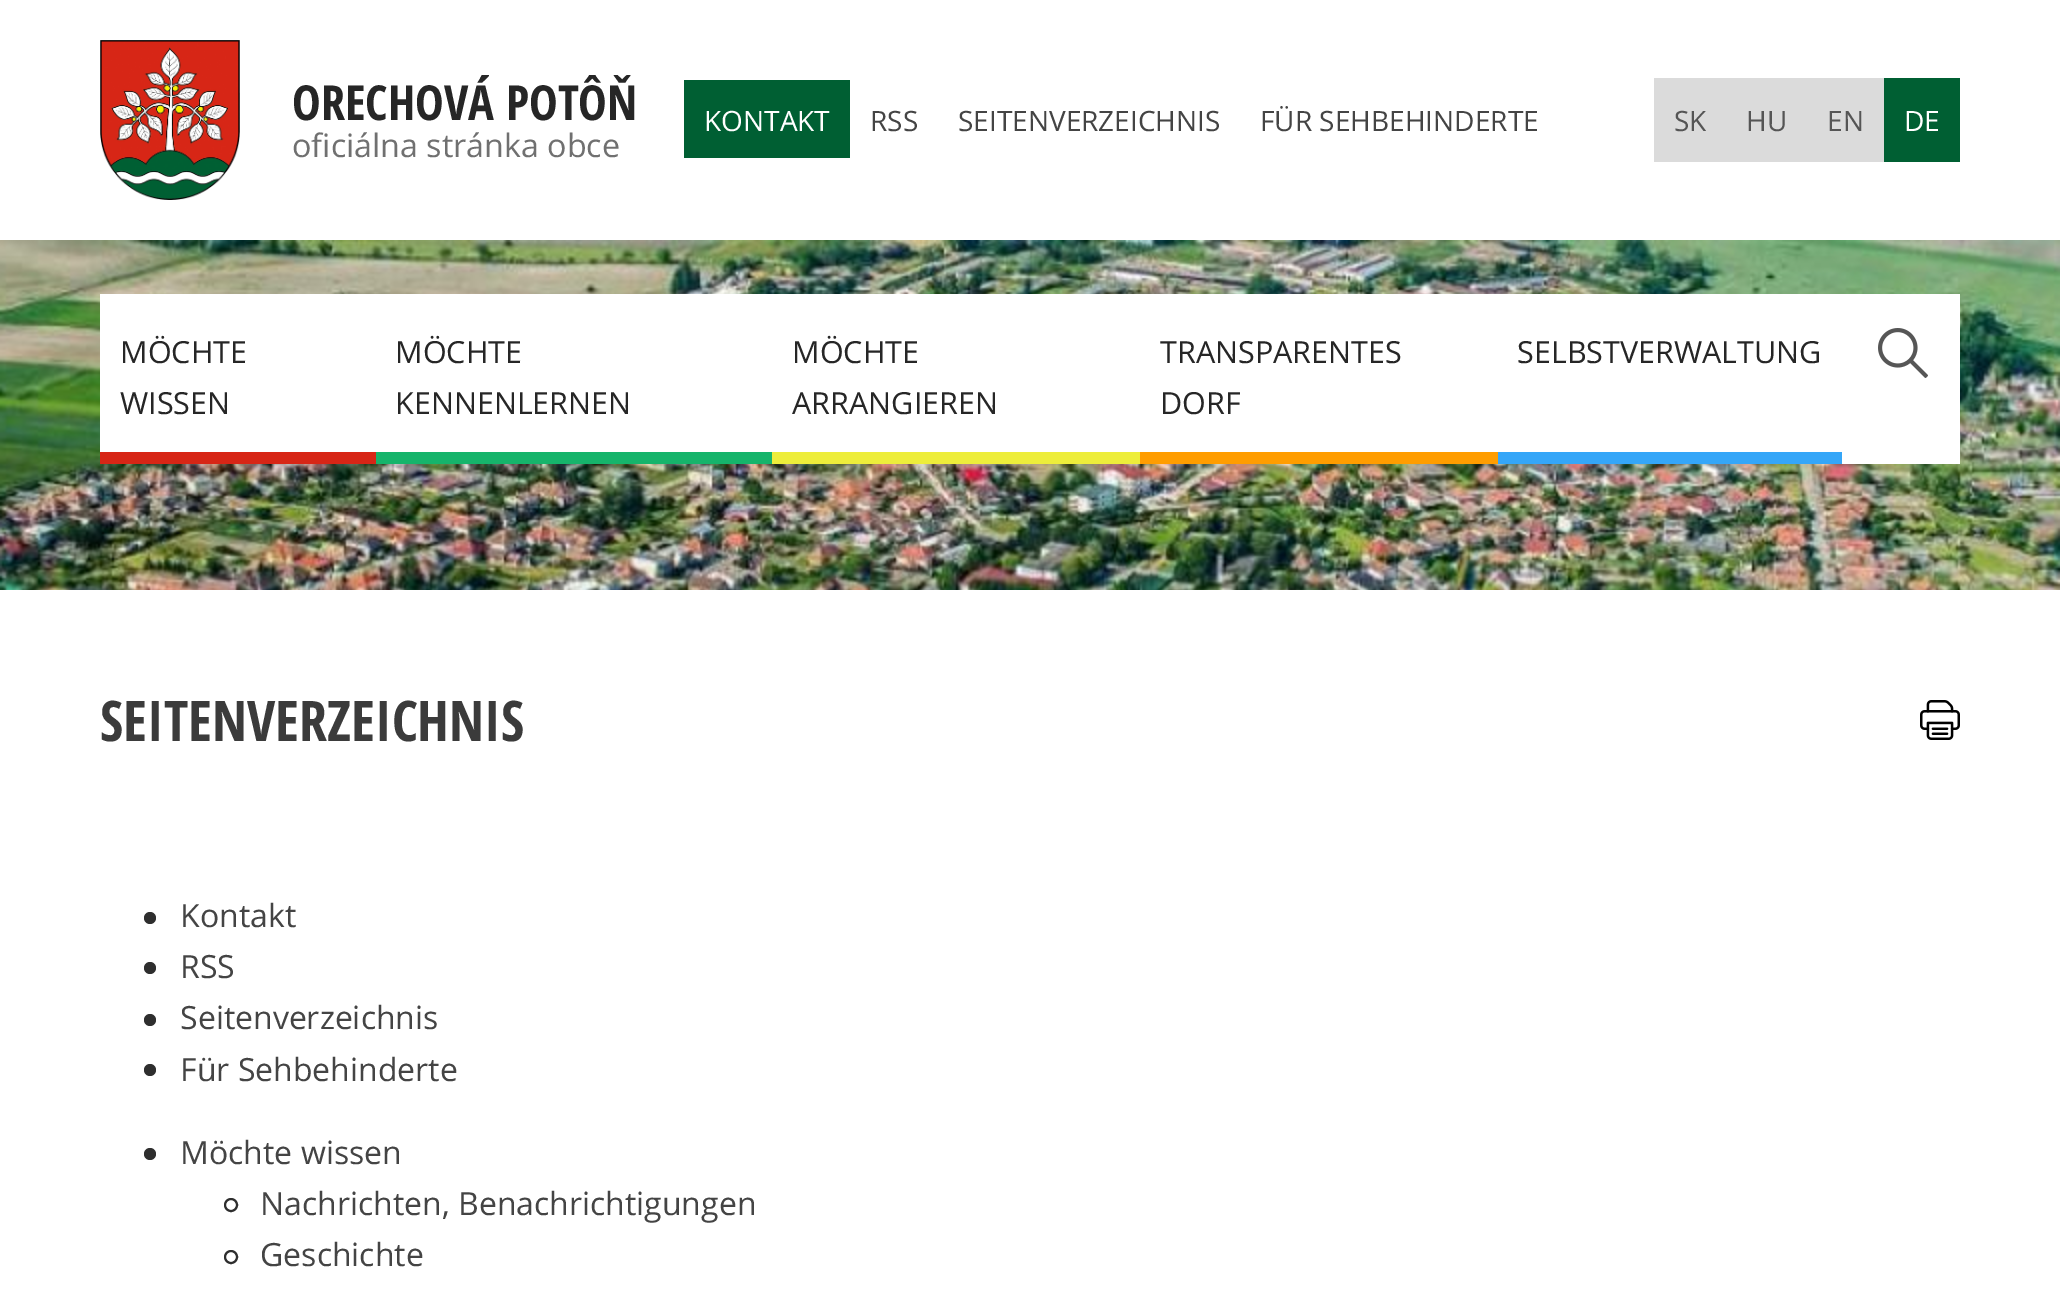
%!PS-Adobe-3.0
%%BoundingBox: 0 0 2060 1291
%%LanguageLevel: 3
%%Pages: 1
%%EndComments
%%BeginProlog
/drawimage { 5 dict begin { /h /w /y /x /name } { exch def } forall
  gsave x y translate w h scale
  w h 8 [w 0 0 h 0 0] name (r) file false 3 colorimage grestore end } def
%%EndProlog
%%BeginSetup
<< /PageSize [2060 1291] >> setpagedevice
%%EndSetup
%%Page: 1 1
0 1291 translate 1 -1 scale
4 setmiterlimit
1 setgray
0 0 2060 1291 rectfill
(images/1.raw) 100 40 140 160 drawimage
0 0.373 0.2 setrgbcolor
684 80 166 78 rectfill
0.859 setgray
1654 78 230 84 rectfill
0 0.373 0.2 setrgbcolor
1884 78 76 84 rectfill
(images/2.raw) 0 240 2060 350 drawimage
1 setgray
100 294 1860 170 rectfill
0.843 0.149 0.086 setrgbcolor
100 452 276 12 rectfill
0.086 0.706 0.42 setrgbcolor
376 452 396 12 rectfill
0.929 0.929 0.231 setrgbcolor
772 452 368 12 rectfill
1 0.616 0 setrgbcolor
1140 452 358 12 rectfill
0.208 0.651 0.973 setrgbcolor
1498 452 344 12 rectfill
(images/3.raw) 1878 328 50 50 drawimage
(images/4.raw) 1920 700 40 40 drawimage
0.18 setgray
newpath 150 918 6 0 360 arc closepath fill
newpath 150 968 6 0 360 arc closepath fill
newpath 150 1020 6 0 360 arc closepath fill
newpath 150 1070 6 0 360 arc closepath fill
newpath 150 1154 6 0 360 arc closepath fill
2 setlinewidth
newpath 231 1205 6 0 360 arc closepath stroke
newpath 231 1257 6 0 360 arc closepath stroke
/OpenSansCondensed-Bold [48.25 0 0 -48.25 0 0] selectfont
0.149 setgray
292 120 moveto (ORECHOVÁ POTÔŇ) show
/OpenSans-Regular [32.25 0 0 -32.25 0 0] selectfont
0.439 setgray
292 157 moveto (oficiálna stránka obce) show
/OpenSans-Regular [28 0 0 -28 0 0] selectfont
1 setgray
704 131 moveto (KONTAKT) show
0.267 setgray
870 131 moveto (RSS) show
958 131 moveto (SEITENVERZEICHNIS) show
1260 131 moveto (FÜR SEHBEHINDERTE) show
0.333 setgray
1674 131 moveto (SK) show
1746 131 moveto (HU) show
1827 131 moveto (EN) show
1 setgray
1904 131 moveto (DE) show
/OpenSans-Regular [30.5 0 0 -30.5 0 0] selectfont
0.149 setgray
120 363 moveto (MÖCHTE) show
120 414 moveto (WISSEN) show
395 363 moveto (MÖCHTE) show
395 414 moveto (KENNENLERNEN) show
792 363 moveto (MÖCHTE) show
792 414 moveto (ARRANGIEREN) show
1160 363 moveto (TRANSPARENTES) show
1160 414 moveto (DORF) show
1517 363 moveto (SELBSTVERWALTUNG) show
/OpenSansCondensed-Bold [56 0 0 -56 0 0] selectfont
0.231 setgray
100 741 moveto (SEITENVERZEICHNIS) show
/OpenSans-Regular [32 0 0 -32 0 0] selectfont
0.267 setgray
180 927 moveto (Kontakt) show
180 978 moveto (RSS) show
180 1029 moveto (Seitenverzeichnis) show
180 1081 moveto (Für Sehbehinderte) show
180 1164 moveto (Möchte wissen) show
260 1215 moveto (Nachrichten, Benachrichtigungen) show
260 1266 moveto (Geschichte) show
showpage
%%EOF
